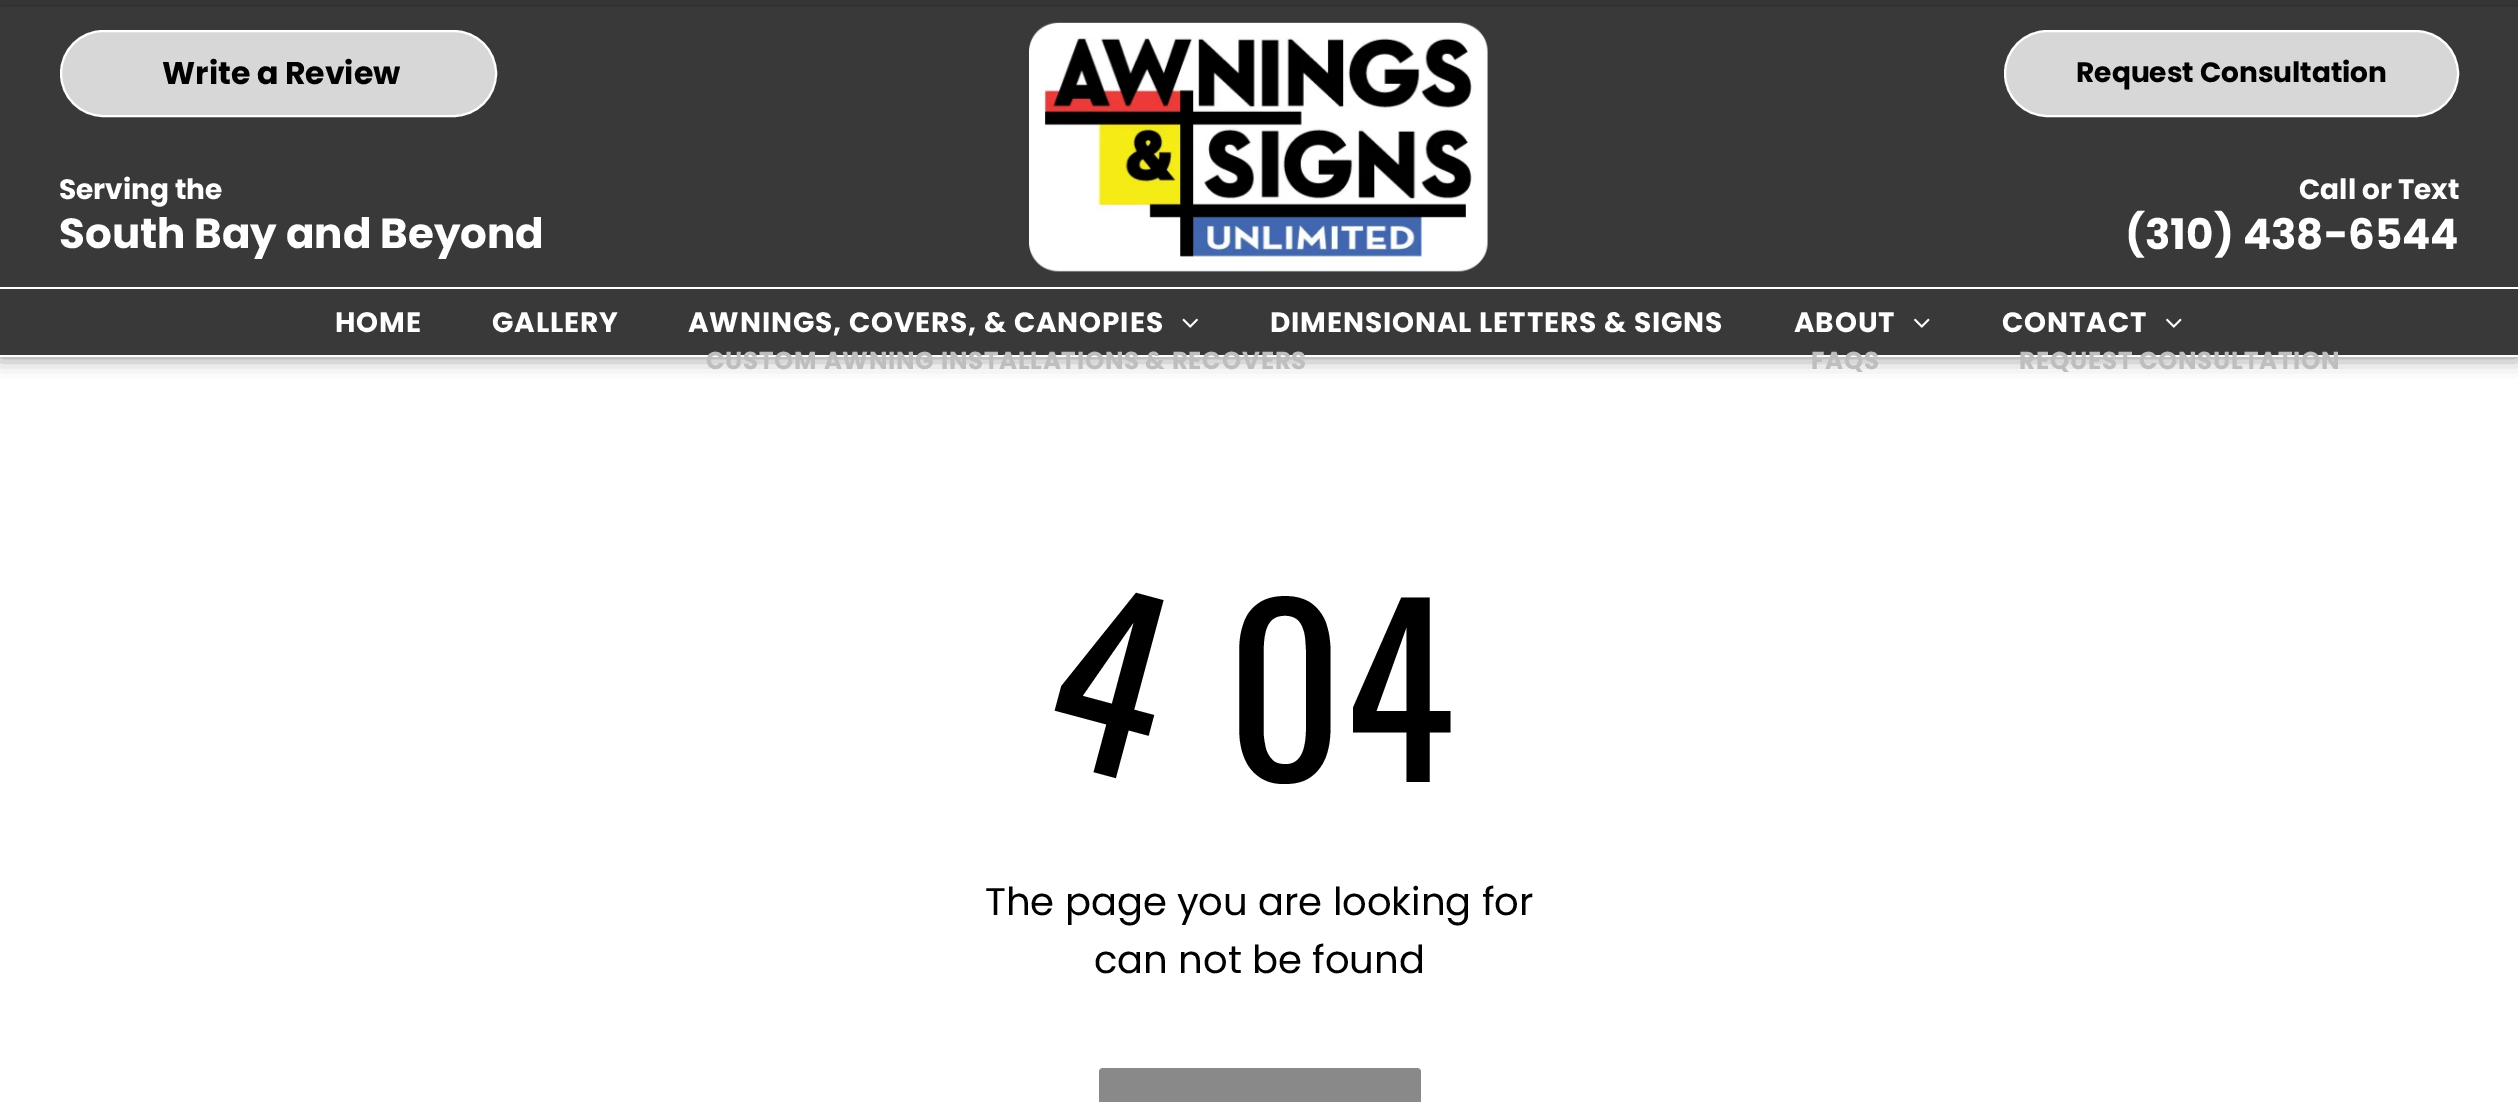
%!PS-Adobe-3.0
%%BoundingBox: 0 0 2518 1102
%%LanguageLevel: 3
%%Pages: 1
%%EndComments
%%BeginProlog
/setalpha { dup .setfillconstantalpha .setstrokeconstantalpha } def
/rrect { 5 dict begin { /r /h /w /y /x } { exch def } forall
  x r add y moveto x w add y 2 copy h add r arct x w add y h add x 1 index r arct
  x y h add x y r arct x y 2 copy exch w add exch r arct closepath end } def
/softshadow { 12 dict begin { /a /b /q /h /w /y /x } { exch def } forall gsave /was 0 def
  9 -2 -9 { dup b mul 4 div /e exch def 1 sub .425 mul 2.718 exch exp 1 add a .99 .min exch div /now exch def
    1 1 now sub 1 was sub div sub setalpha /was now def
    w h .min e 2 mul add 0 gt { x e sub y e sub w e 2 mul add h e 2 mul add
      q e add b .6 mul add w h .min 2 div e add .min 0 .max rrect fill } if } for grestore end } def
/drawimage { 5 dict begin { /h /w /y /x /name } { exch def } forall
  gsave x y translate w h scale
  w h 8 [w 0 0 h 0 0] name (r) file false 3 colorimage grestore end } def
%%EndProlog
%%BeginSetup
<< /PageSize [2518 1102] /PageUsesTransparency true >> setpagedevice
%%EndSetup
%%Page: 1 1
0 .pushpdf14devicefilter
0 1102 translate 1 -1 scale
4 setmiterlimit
1 setgray
0 0 2518 1102 rectfill
0 setgray
0 0 2518 357 0 9.5 0.25 softshadow
0.224 setgray
0 0 2518 355 rectfill
gsave
newpath 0 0 moveto 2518 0 lineto 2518 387 lineto 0 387 lineto closepath 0 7 moveto 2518 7 lineto 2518 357 lineto 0 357 lineto closepath eoclip newpath
0 setgray
0 7 2518 350 0 9.5 0.25 softshadow
grestore
0.843 setgray
61 31 435 85 42.5 rrect gsave fill grestore
1 setgray
2 setlinewidth
stroke
(images/1.raw) 1029 22 459 250 drawimage
0.843 setgray
2005 31 453 85 42.5 rrect gsave fill grestore
1 setgray
stroke
0 287 2518 2 rectfill
0 355 2518 2 rectfill
(images/2.raw) 1182 318 16 10 drawimage
(images/3.raw) 1914 318 16 10 drawimage
(images/3.raw) 2166 318 16 10 drawimage
0.537 setgray
1099 1068 322 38 4 rrect fill
/Poppins-Bold [31.5 0 0 -31.5 0 0] selectfont
0 setgray
162 84 moveto (Write a Review) show
/Poppins-Bold [28 0 0 -28 0 0] selectfont
1 setgray
59 199 moveto (Serving the) show
/Poppins-Bold [42 0 0 -42 0 0] selectfont
59 248 moveto (South Bay and Beyond) show
/Poppins-Bold [28 0 0 -28 0 0] selectfont
0 setgray
2076 82 moveto (Request Consultation) show
1 setgray
2299 199 moveto (Call or Text) show
/Poppins-Bold [42 0 0 -42 0 0] selectfont
2125 249 moveto (\(310\) 438-6544) show
/Poppins-Bold [28 0 0 -28 0 0] selectfont
335 332 moveto 0.85 0 (HOME) ashow
492 332 moveto 0.85 0 (GALLERY) ashow
688 332 moveto 0.85 0 (AWNINGS, COVERS, & CANOPIES) ashow
/Poppins-Bold [24.5 0 0 -24.5 0 0] selectfont
0.745 setgray
706 369 moveto 0.75 0 (CUSTOM AWNING INSTALLATIONS & RECOVERS) ashow
/Poppins-Bold [28 0 0 -28 0 0] selectfont
1 setgray
1270 332 moveto 0.85 0 (DIMENSIONAL LETTERS & SIGNS) ashow
1794 332 moveto 0.85 0 (ABOUT) ashow
/Poppins-Bold [24.5 0 0 -24.5 0 0] selectfont
0.745 setgray
1811 369 moveto 0.75 0 (FAQS) ashow
/Poppins-Bold [28 0 0 -28 0 0] selectfont
1 setgray
2002 332 moveto 0.85 0 (CONTACT) ashow
/Poppins-Bold [24.5 0 0 -24.5 0 0] selectfont
0.745 setgray
2019 369 moveto 0.75 0 (REQUEST CONSULTATION) ashow
/Oswald-Regular [228 0 0 -228 0 0] selectfont
0 setgray
gsave 1033 756 translate 15 rotate 0 0 moveto (4) show grestore
1226 782 moveto (04) show
/Poppins-Regular [38.5 0 0 -38.5 0 0] selectfont
985 915 moveto (The page you are looking for) show
1094 973 moveto (can not be found) show
.poppdf14devicefilter showpage
%%EOF
